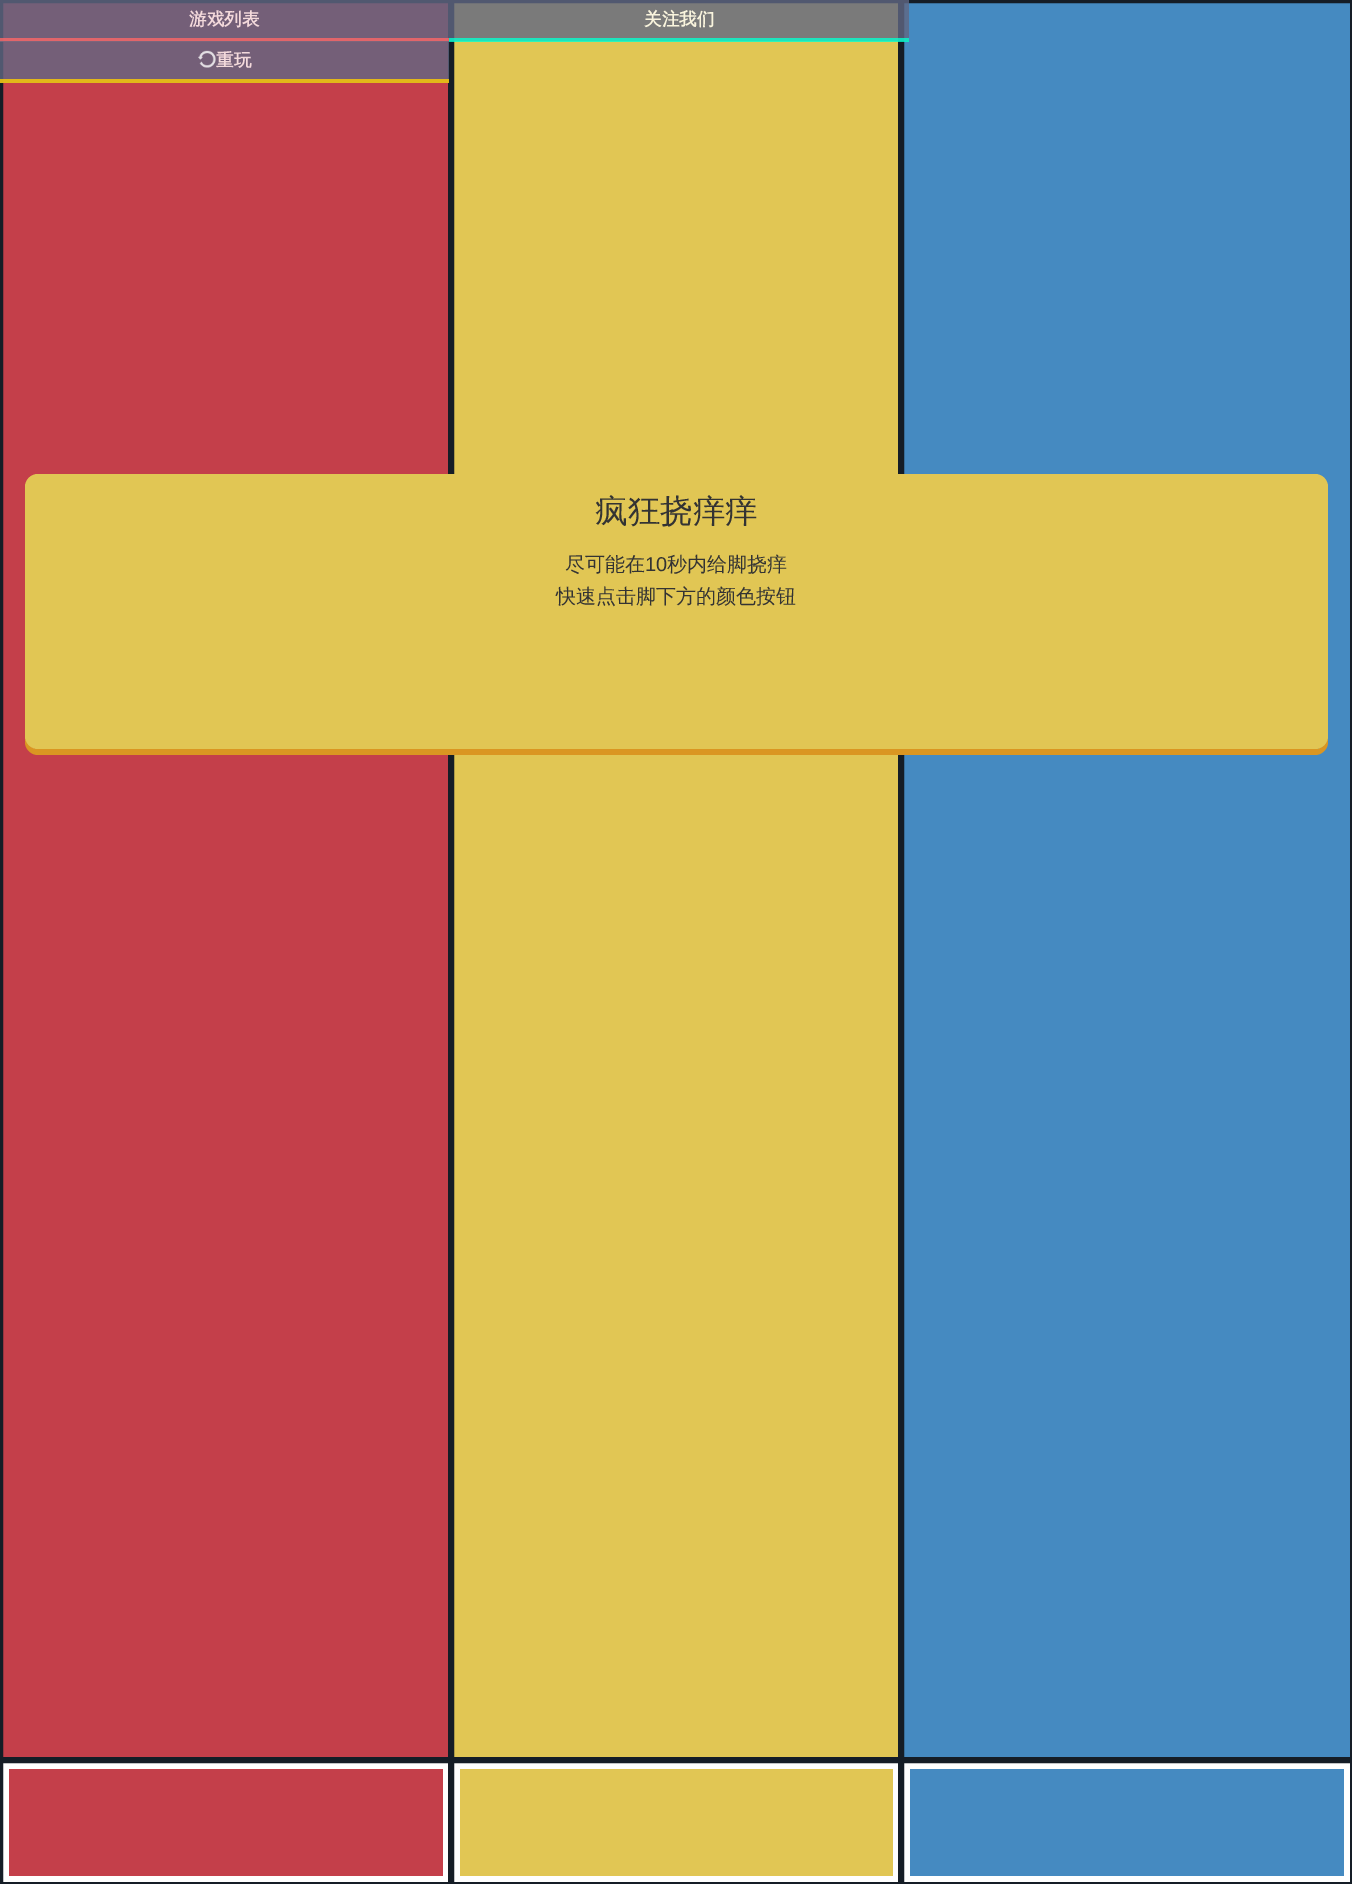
%!PS-Adobe-3.0
%%BoundingBox: 0 0 1352 1884
%%LanguageLevel: 3
%%Pages: 1
%%EndComments
%%BeginProlog
/setalpha { dup .setfillconstantalpha .setstrokeconstantalpha } def
/rrect { 5 dict begin { /r /h /w /y /x } { exch def } forall
  x r add y moveto x w add y 2 copy h add r arct x w add y h add x 1 index r arct
  x y h add x y r arct x y 2 copy exch w add exch r arct closepath end } def
/drawimage { 5 dict begin { /h /w /y /x /name } { exch def } forall
  gsave x y translate w h scale
  w h 8 [w 0 0 h 0 0] name (r) file false 3 colorimage grestore end } def
%%EndProlog
%%BeginSetup
<< /PageSize [1352 1884] /PageUsesTransparency true >> setpagedevice
%%EndSetup
%%Page: 1 1
0 .pushpdf14devicefilter
0 1884 translate 1 -1 scale
4 setmiterlimit
0.769 0.247 0.29 setrgbcolor
0 0 1352 1884 rectfill
0.082 0.114 0.149 setrgbcolor
3 setlinewidth
1.5 1.5 448 1757 rectstroke
0.8 setalpha
0.376 0.404 0.514 setrgbcolor
0 0 449 41 rectfill
0.992 0.404 0.4 setrgbcolor
0 38 449 4 rectfill
1 setalpha
0.882 0.776 0.329 setrgbcolor
newpath 452.5 1.5 moveto 899.5 1.5 lineto 899.5 1758.5 lineto 452.5 1758.5 lineto closepath gsave fill grestore
0.082 0.114 0.149 setrgbcolor
stroke
0.271 0.541 0.757 setrgbcolor
newpath 902.5 1.5 moveto 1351.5 1.5 lineto 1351.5 1758.5 lineto 902.5 1758.5 lineto closepath gsave fill grestore
0.082 0.114 0.149 setrgbcolor
stroke
0.8 setalpha
0.376 0.404 0.514 setrgbcolor
449 0 460 41 rectfill
0.016 0.996 0.808 setrgbcolor
449 38 460 4 rectfill
0.376 0.404 0.514 setrgbcolor
0 41 449 42 rectfill
0.992 0.804 0.004 setrgbcolor
0 79 449 4 rectfill
1 setalpha
(images/1.raw) 198 50 18 18 drawimage
0.855 0.588 0.133 setrgbcolor
newpath 25 736 moveto 25 742 lineto 25 749 31 755 38 755 curveto 1315 755 lineto 1322 755 1328 749 1328 742 curveto 1328 493 lineto 1328 489 lineto 1328 736 lineto 1328 743 1322 749 1315 749 curveto 38 749 lineto 31 749 25 743 25 736 curveto closepath fill
0.882 0.776 0.329 setrgbcolor
25 474 1303 275 13 rrect fill
1 setgray
newpath 1.5 1761.5 moveto 449.5 1761.5 lineto 449.5 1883.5 lineto 1.5 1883.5 lineto closepath gsave fill grestore
0.082 0.114 0.149 setrgbcolor
stroke
0.769 0.247 0.29 setrgbcolor
9 1769 434 107 rectfill
1 setgray
newpath 452.5 1761.5 moveto 899.5 1761.5 lineto 899.5 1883.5 lineto 452.5 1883.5 lineto closepath gsave fill grestore
0.082 0.114 0.149 setrgbcolor
stroke
0.882 0.776 0.329 setrgbcolor
460 1769 433 107 rectfill
1 setgray
newpath 902.5 1761.5 moveto 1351.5 1761.5 lineto 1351.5 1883.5 lineto 902.5 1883.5 lineto closepath gsave fill grestore
0.082 0.114 0.149 setrgbcolor
stroke
0.271 0.541 0.757 setrgbcolor
910 1769 434 107 rectfill
/WenQuanYiZenHei-Bold [17.5 0 0 -17.5 0 0] selectfont
0.953 0.851 0.859 setrgbcolor
189 25 moveto (游戏列表) show
0.976 0.957 0.867 setrgbcolor
644 25 moveto (关注我们) show
0.953 0.851 0.859 setrgbcolor
216 66 moveto (重玩) show
/WenQuanYiZenHei-Medium [32.5 0 0 -32.5 0 0] selectfont
0.2 setgray
595 522 moveto (疯狂挠痒痒) show
/WenQuanYiZenHei-Medium [20 0 0 -20 0 0] selectfont
565 571 moveto (尽可能在) show
/LiberationSans-Regular [20 0 0 -20 0 0] selectfont
645 571 moveto (10) show
/WenQuanYiZenHei-Medium [20 0 0 -20 0 0] selectfont
667 571 moveto (秒内给脚挠痒) show
556 603 moveto (快速点击脚下方的颜色按钮) show
.poppdf14devicefilter showpage
%%EOF
